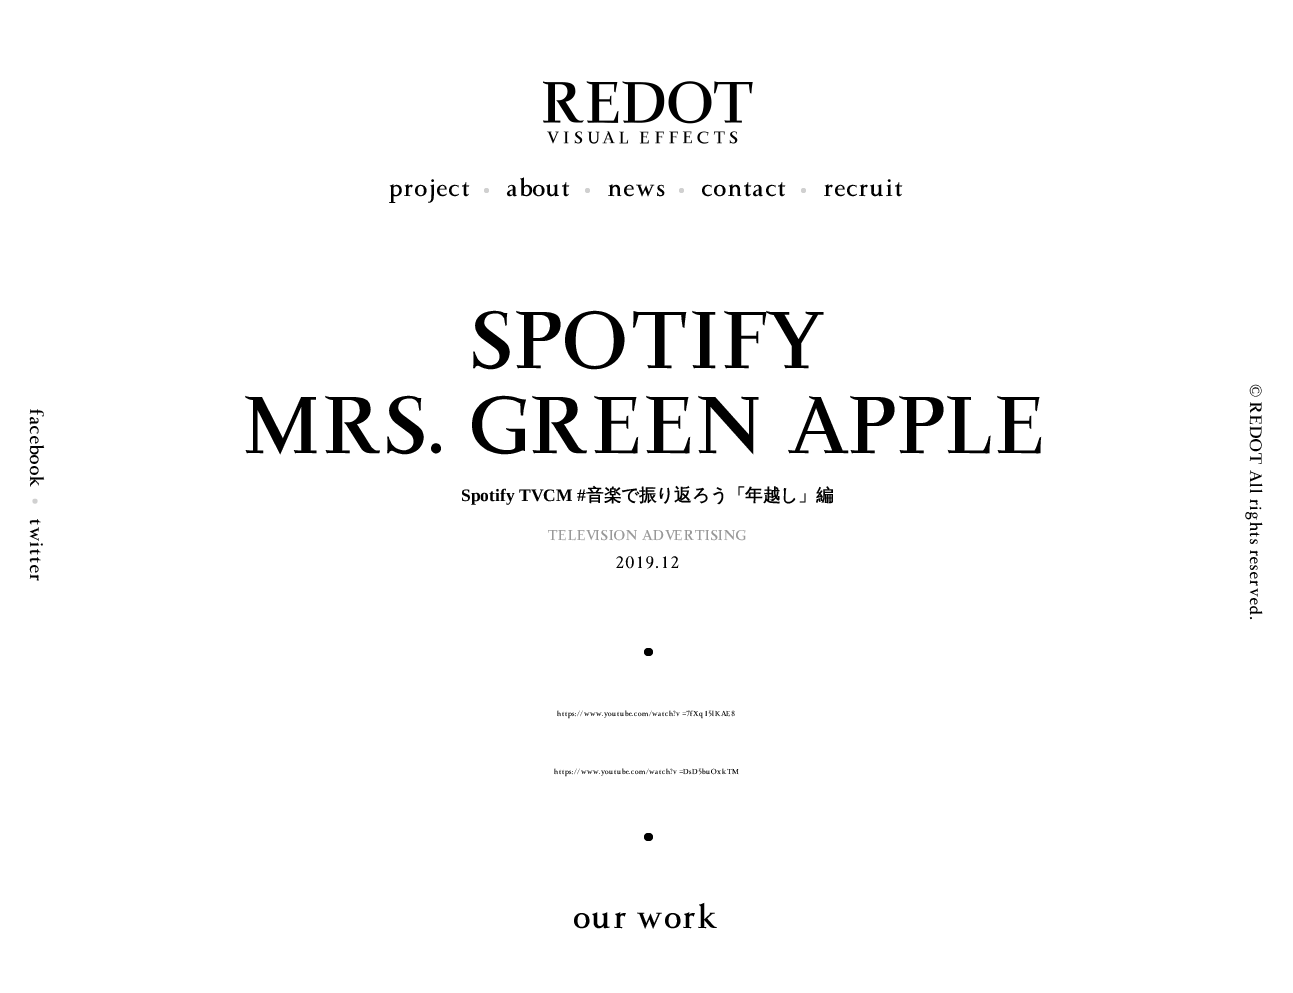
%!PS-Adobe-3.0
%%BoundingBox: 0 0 1293 993
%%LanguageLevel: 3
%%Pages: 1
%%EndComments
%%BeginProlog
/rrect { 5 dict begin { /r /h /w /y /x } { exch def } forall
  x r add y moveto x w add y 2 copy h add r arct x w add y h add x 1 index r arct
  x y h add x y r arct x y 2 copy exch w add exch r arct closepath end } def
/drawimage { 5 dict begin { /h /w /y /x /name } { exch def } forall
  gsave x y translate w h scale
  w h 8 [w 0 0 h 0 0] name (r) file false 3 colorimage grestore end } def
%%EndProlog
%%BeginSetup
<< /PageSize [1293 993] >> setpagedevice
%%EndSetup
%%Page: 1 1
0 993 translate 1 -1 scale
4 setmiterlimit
1 setgray
0 0 1293 993 rectfill
(images/1.raw) 543 81 210 63 drawimage
0.816 setgray
newpath 486.5 190.5 2.5 0 360 arc closepath fill
newpath 587.5 190.5 2.5 0 360 arc closepath fill
newpath 681.5 190.5 2.5 0 360 arc closepath fill
newpath 803.5 190.5 2.5 0 360 arc closepath fill
newpath 37.5 501 moveto 37.5 504.5 32.5 504.5 32.5 501 curveto 32.5 498 37.5 498 37.5 501 curveto closepath fill
0 setgray
644 648 9 8 4 rrect fill
644 833 9 8 4 rrect fill
/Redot-Regular [26 0 0 -26 0 0] selectfont
389 196 moveto (project) show
507 196 moveto (about) show
608 196 moveto (news) show
702 196 moveto (contact) show
824 196 moveto (recruit) show
/Redot-Regular [20 0 0 -20 0 0] selectfont
gsave 30 409 translate 90 rotate 0 0 moveto (facebook) show grestore
gsave 30 519 translate 90 rotate 0 0 moveto (twitter) show grestore
/Redot-Regular [85 0 0 -85 0 0] selectfont
473 368 moveto (SPOTIFY) show
245 453 moveto (MRS. GREEN APPLE) show
/LiberationSerif-Bold [17.5 0 0 -17.5 0 0] selectfont
461 501 moveto (Spotify TVCM #) show
/WenQuanYiZenHei-Bold [17.5 0 0 -17.5 0 0] selectfont
586 501 moveto (音楽で振り返ろう「年越し」編) show
/Redot-Regular [15 0 0 -15 0 0] selectfont
0.6 setgray
548 540 moveto (TELEVISION ADVERTISING) show
/Redot-Regular [17.5 0 0 -17.5 0 0] selectfont
0 setgray
615 568 moveto (2019.12) show
/Redot-Regular [7.75 0 0 -7.75 0 0] selectfont
557 716 moveto (https://www.youtube.com/watch?v) show
/LiberationSerif-Regular [7.75 0 0 -7.75 0 0] selectfont
682 716 moveto (=) show
/Redot-Regular [7.75 0 0 -7.75 0 0] selectfont
686 716 moveto (7fXq15lKAE8) show
554 774 moveto (https://www.youtube.com/watch?v) show
/LiberationSerif-Regular [7.75 0 0 -7.75 0 0] selectfont
679 774 moveto (=) show
/Redot-Regular [7.75 0 0 -7.75 0 0] selectfont
683 774 moveto (DsD5buOxkTM) show
/Redot-Regular [35 0 0 -35 0 0] selectfont
574 928 moveto (our work) show
/LiberationSerif-Regular [17.5 0 0 -17.5 0 0] selectfont
gsave 1250 384 translate 90 rotate 0 0 moveto (©) show grestore
/Redot-Regular [17.5 0 0 -17.5 0 0] selectfont
gsave 1250 402 translate 90 rotate 0 0 moveto (REDOT All rights reserved.) show grestore
showpage
%%EOF
